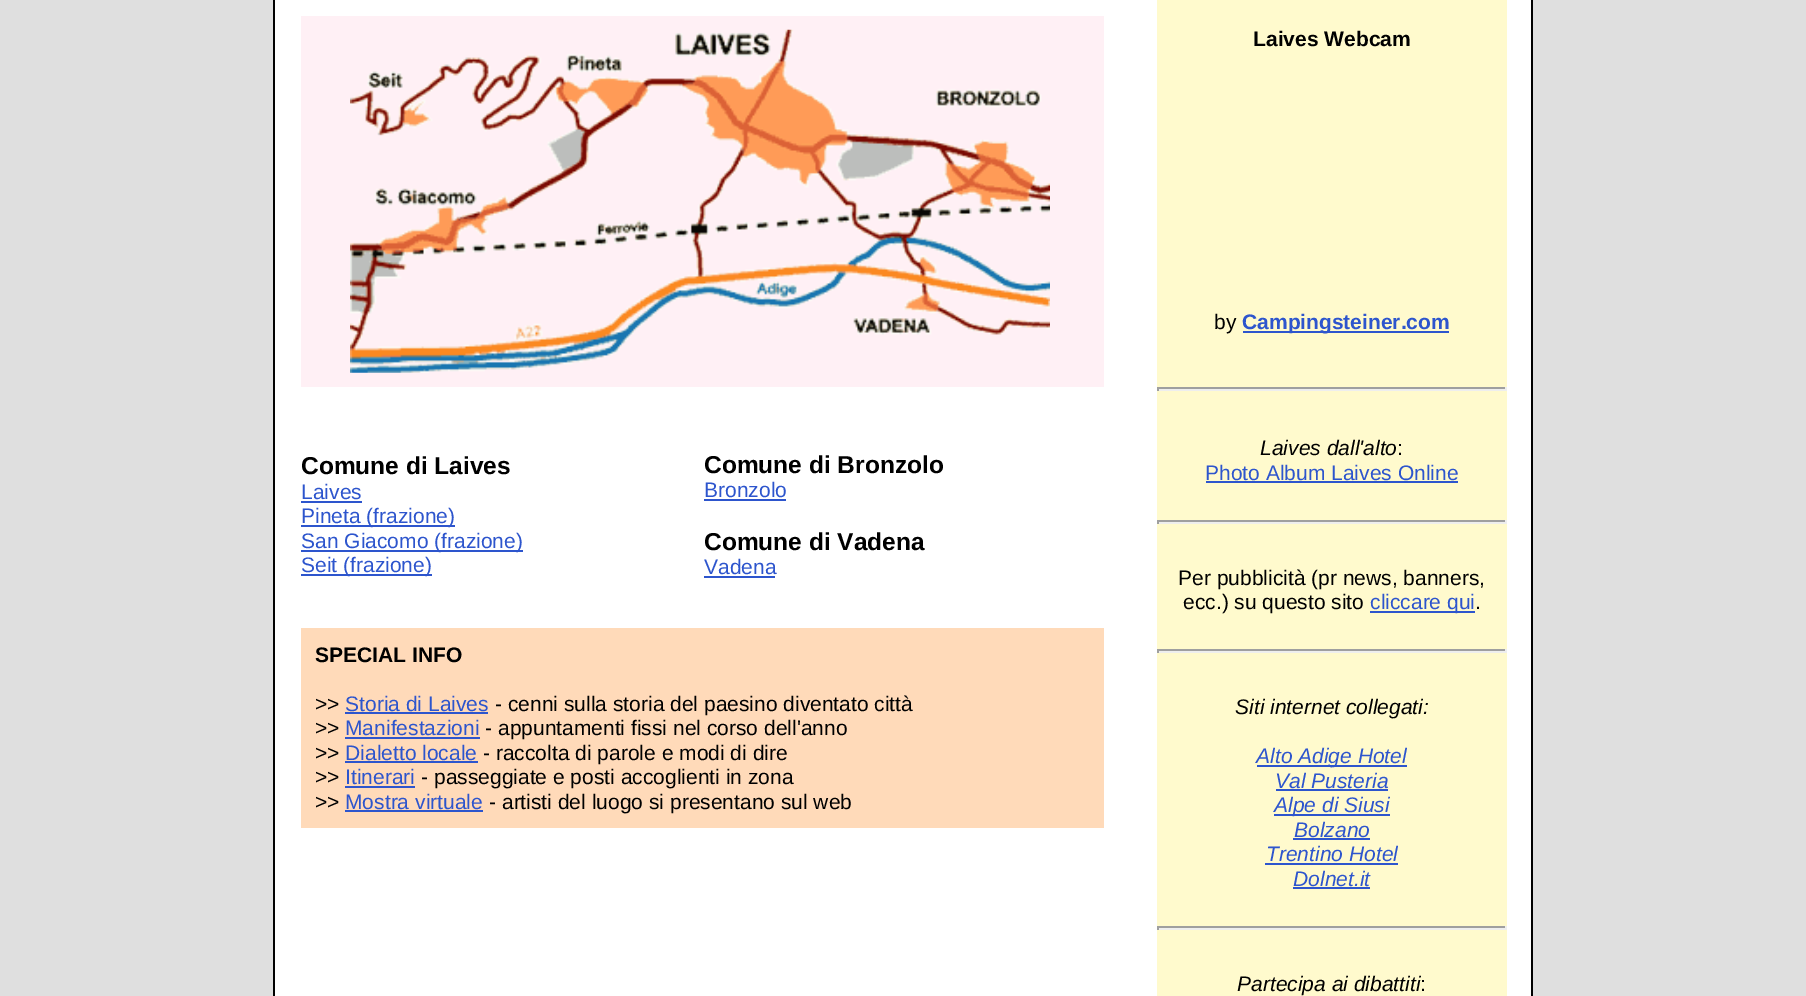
%!PS-Adobe-3.0
%%BoundingBox: 0 0 1806 996
%%LanguageLevel: 3
%%Pages: 1
%%EndComments
%%BeginProlog
/drawimage { 5 dict begin { /h /w /y /x /name } { exch def } forall
  gsave x y translate w h scale
  w h 8 [w 0 0 h 0 0] name (r) file false 3 colorimage grestore end } def
%%EndProlog
%%BeginSetup
<< /PageSize [1806 996] >> setpagedevice
%%EndSetup
%%Page: 1 1
0 996 translate 1 -1 scale
4 setmiterlimit
0.875 setgray
0 0 1806 996 rectfill
0 setgray
273 0 1260 996 rectfill
1 setgray
275 0 1256 996 rectfill
1 0.941 0.961 setrgbcolor
301 16 803 371 rectfill
(images/1.raw) 350 29 700 344 drawimage
0.176 0.333 0.804 setrgbcolor
301 501 61 2 rectfill
301 525 154 2 rectfill
301 550 222 2 rectfill
301 574 131 2 rectfill
704 499 82 2 rectfill
704 576 71 2 rectfill
1 0.855 0.725 setrgbcolor
301 628 803 200 rectfill
0.176 0.333 0.804 setrgbcolor
345 712 143 2 rectfill
345 737 135 2 rectfill
345 761 133 2 rectfill
345 786 70 2 rectfill
345 810 138 2 rectfill
1 0.98 0.804 setrgbcolor
1157 0 350 996 rectfill
0.176 0.333 0.804 setrgbcolor
1243 331 206 2 rectfill
0.624 setgray
1157 387 350 2 rectfill
0.933 setgray
1505 387 2 4 rectfill
1157 389 350 2 rectfill
0.624 setgray
1157 387 2 4 rectfill
0.176 0.333 0.804 setrgbcolor
1206 481 252 2 rectfill
0.624 setgray
1157 520 350 2 rectfill
0.933 setgray
1505 520 2 4 rectfill
1157 522 350 2 rectfill
0.624 setgray
1157 520 2 4 rectfill
0.176 0.333 0.804 setrgbcolor
1370 611 105 2 rectfill
0.624 setgray
1157 649 350 2 rectfill
0.933 setgray
1505 649 2 4 rectfill
1157 651 350 2 rectfill
0.624 setgray
1157 649 2 4 rectfill
0.176 0.333 0.804 setrgbcolor
1257 765 150 2 rectfill
1276 789 112 2 rectfill
1274 814 116 2 rectfill
1293 838 77 2 rectfill
1265 863 133 2 rectfill
1293 887 77 2 rectfill
0.624 setgray
1157 926 350 2 rectfill
0.933 setgray
1505 926 2 4 rectfill
1157 928 350 2 rectfill
0.624 setgray
1157 926 2 4 rectfill
/LiberationSans-Bold [24.5 0 0 -24.5 0 0] selectfont
0 setgray
301 474 moveto (Comune di Laives) show
/LiberationSans-Regular [21 0 0 -21 0 0] selectfont
0.176 0.333 0.804 setrgbcolor
301 499 moveto (Laives) show
301 523 moveto (Pineta \(frazione\)) show
301 548 moveto (San Giacomo \(frazione\)) show
301 572 moveto (Seit \(frazione\)) show
/LiberationSans-Bold [24.5 0 0 -24.5 0 0] selectfont
0 setgray
704 473 moveto (Comune di Bronzolo) show
/LiberationSans-Regular [21 0 0 -21 0 0] selectfont
0.176 0.333 0.804 setrgbcolor
704 497 moveto (Bronzolo) show
/LiberationSans-Bold [24.5 0 0 -24.5 0 0] selectfont
0 setgray
704 550 moveto (Comune di Vadena) show
/LiberationSans-Regular [21 0 0 -21 0 0] selectfont
0.176 0.333 0.804 setrgbcolor
704 574 moveto (Vadena) show
/LiberationSans-Bold [21 0 0 -21 0 0] selectfont
0 setgray
315 662 moveto (SPECIAL INFO) show
/LiberationSans-Regular [21 0 0 -21 0 0] selectfont
315 711 moveto (>>) show
0.176 0.333 0.804 setrgbcolor
345 711 moveto (Storia di Laives) show
0 setgray
495 711 moveto (- cenni sulla storia del paesino diventato città) show
315 735 moveto (>>) show
0.176 0.333 0.804 setrgbcolor
345 735 moveto (Manifestazioni) show
0 setgray
485 735 moveto (- appuntamenti fissi nel corso dell'anno) show
315 760 moveto (>>) show
0.176 0.333 0.804 setrgbcolor
345 760 moveto (Dialetto locale) show
0 setgray
483 760 moveto (- raccolta di parole e modi di dire) show
315 784 moveto (>>) show
0.176 0.333 0.804 setrgbcolor
345 784 moveto (Itinerari) show
0 setgray
421 784 moveto (- passeggiate e posti accoglienti in zona) show
315 809 moveto (>>) show
0.176 0.333 0.804 setrgbcolor
345 809 moveto (Mostra virtuale) show
0 setgray
489 809 moveto (- artisti del luogo si presentano sul web) show
/LiberationSans-Bold [21 0 0 -21 0 0] selectfont
1253 46 moveto (Laives Webcam) show
/LiberationSans-Regular [21 0 0 -21 0 0] selectfont
1214 329 moveto (by) show
/LiberationSans-Bold [21 0 0 -21 0 0] selectfont
0.176 0.333 0.804 setrgbcolor
1242 329 moveto (Campingsteiner.com) show
/LiberationSans-Italic [21 0 0 -21 0 0] selectfont
0 setgray
1260 455 moveto (Laives dall'alto) show
/LiberationSans-Regular [21 0 0 -21 0 0] selectfont
1397 455 moveto (:) show
0.176 0.333 0.804 setrgbcolor
1205 480 moveto (Photo Album Laives Online) show
0 setgray
1178 585 moveto (Per pubblicità \(pr news, banners,) show
1183 609 moveto (ecc.\) su questo sito) show
0.176 0.333 0.804 setrgbcolor
1370 609 moveto (cliccare qui) show
0 setgray
1475 609 moveto (.) show
/LiberationSans-Italic [21 0 0 -21 0 0] selectfont
1235 714 moveto (Siti internet collegati:) show
0.176 0.333 0.804 setrgbcolor
1256 763 moveto (Alto Adige Hotel) show
1275 788 moveto (Val Pusteria) show
1274 812 moveto (Alpe di Siusi) show
1294 837 moveto (Bolzano) show
1266 861 moveto (Trentino Hotel) show
1293 886 moveto (Dolnet.it) show
0 setgray
1237 991 moveto (Partecipa ai dibattiti) show
/LiberationSans-Regular [21 0 0 -21 0 0] selectfont
1420 991 moveto (:) show
showpage
%%EOF
